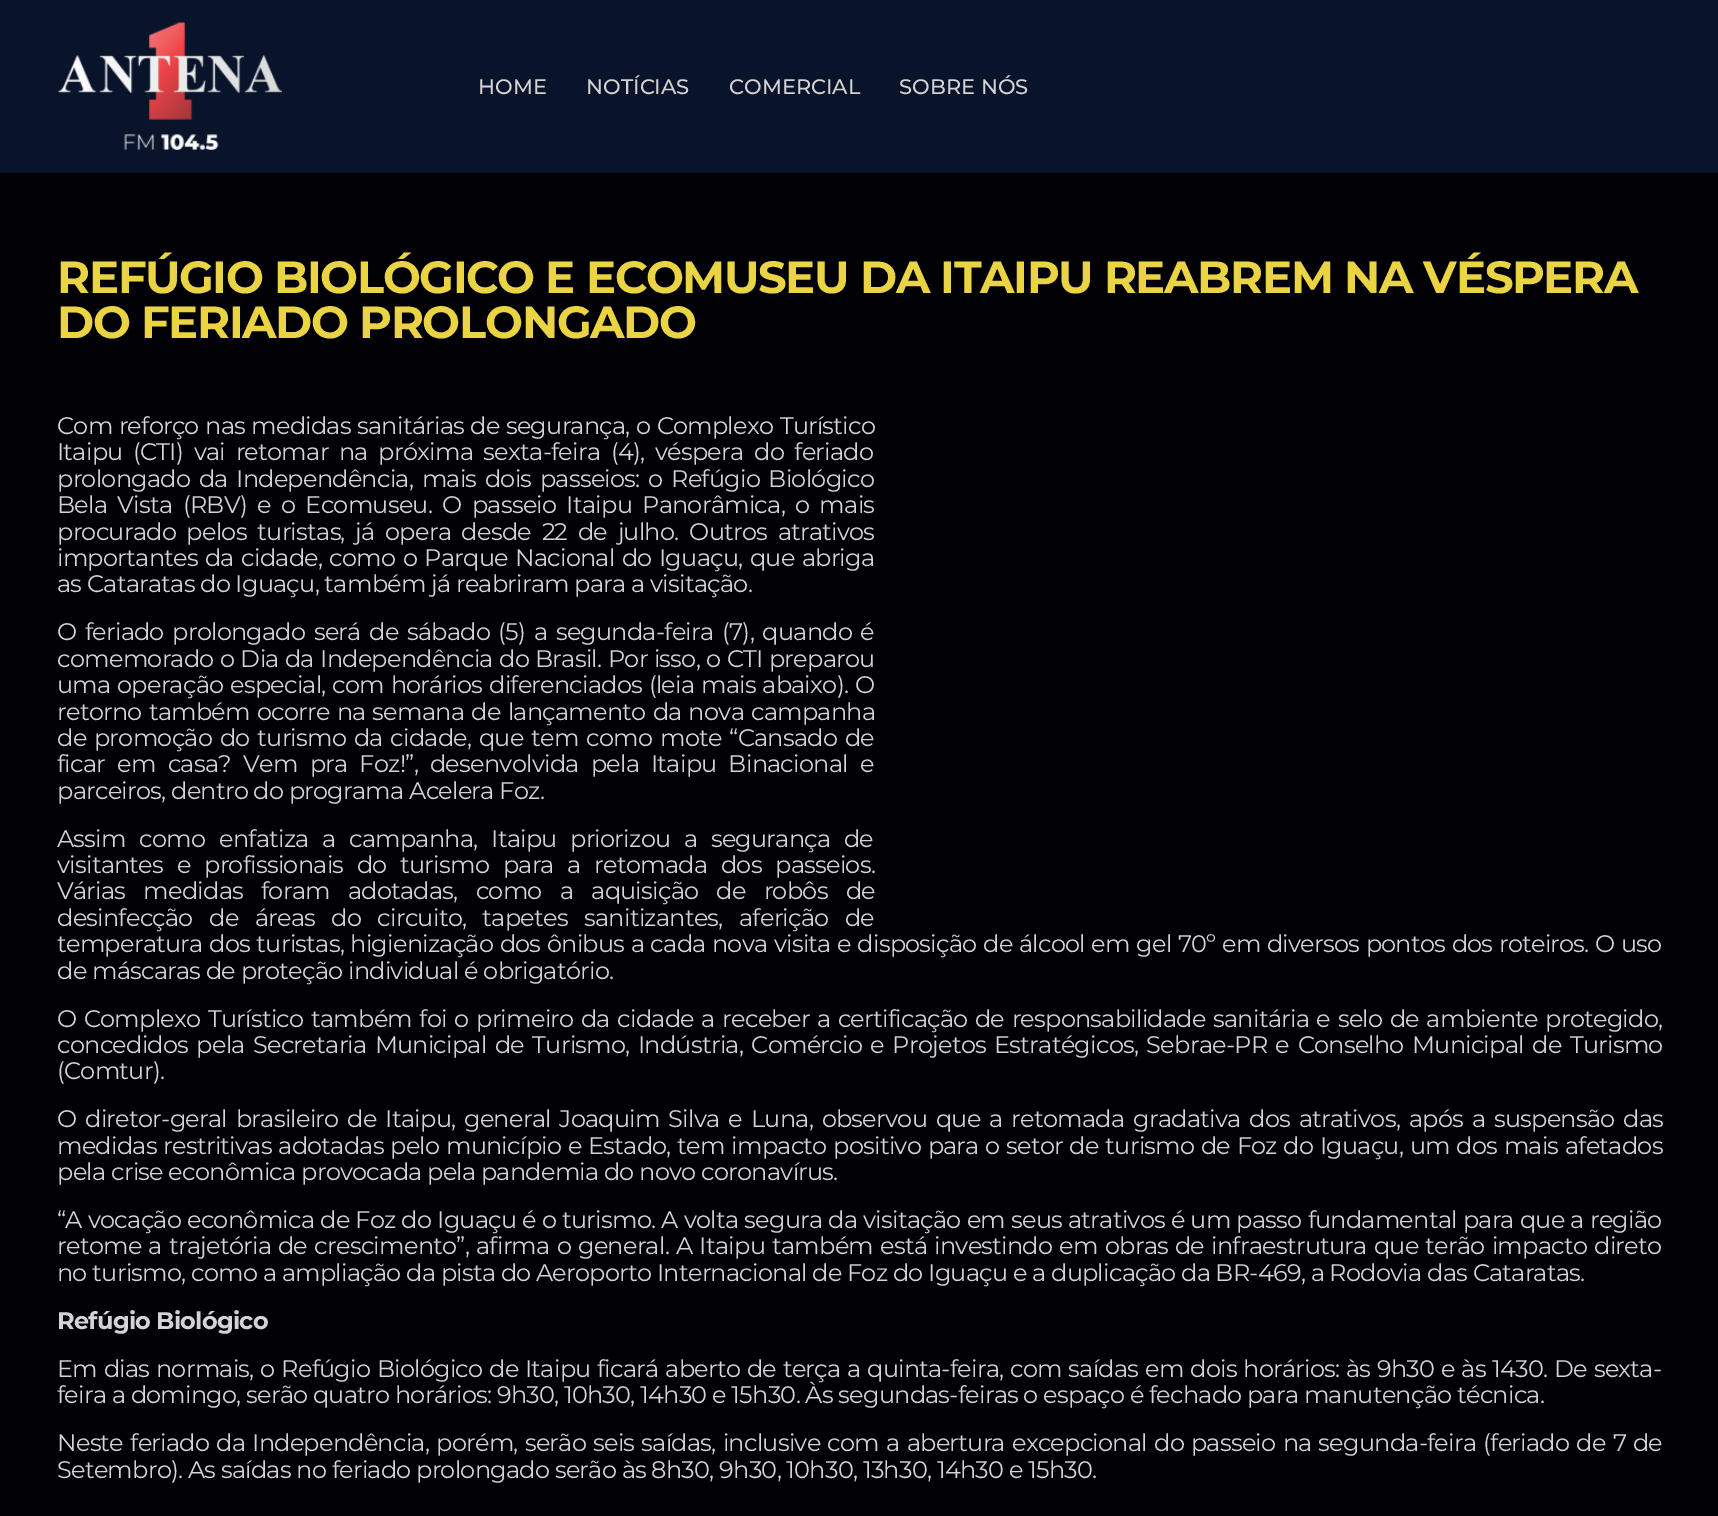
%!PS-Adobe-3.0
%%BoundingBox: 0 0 1718 1516
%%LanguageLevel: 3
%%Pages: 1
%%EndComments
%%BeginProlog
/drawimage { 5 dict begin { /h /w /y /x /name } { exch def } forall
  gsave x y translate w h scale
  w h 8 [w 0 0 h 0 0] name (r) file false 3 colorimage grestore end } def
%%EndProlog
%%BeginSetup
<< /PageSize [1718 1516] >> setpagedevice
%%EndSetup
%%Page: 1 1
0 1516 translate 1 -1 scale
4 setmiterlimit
0.035 0.075 0.165 setrgbcolor
0 0 1718 1516 rectfill
(images/1.raw) 58 22 224 128 drawimage
0 0 0.02 setrgbcolor
0 173 1718 1343 rectfill
/Montserrat-Medium [21 0 0 -21 0 0] selectfont
0.831 setgray
478 94 moveto (HOME) show
586 94 moveto (NOTÍCIAS) show
729 94 moveto (COMERCIAL) show
899 94 moveto (SOBRE NÓS) show
/Montserrat-Bold [45 0 0 -45 0 0] selectfont
0.918 0.831 0.263 setrgbcolor
57 293 moveto -1.35 0 (REFÚGIO BIOLÓGICO E ECOMUSEU DA ITAIPU REABREM NA VÉSPERA) ashow
57 338 moveto -1.35 0 (DO FERIADO PROLONGADO) ashow
/Montserrat-Regular [24 0 0 -24 0 0] selectfont
0.831 setgray
57 434 moveto 0.75 0 32 -0.75 0 (Com reforço nas medidas sanitárias de segurança, o Complexo Turístico) awidthshow
57 460 moveto 5 0 32 -0.75 0 (Itaipu \(CTI\) vai retomar na próxima sexta-feira \(4\), véspera do feriado) awidthshow
57 487 moveto 3 0 32 -0.75 0 (prolongado da Independência, mais dois passeios: o Refúgio Biológico) awidthshow
57 513 moveto 4.6 0 32 -0.75 0 (Bela Vista \(RBV\) e o Ecomuseu. O passeio Itaipu Panorâmica, o mais) awidthshow
57 540 moveto 5 0 32 -0.75 0 (procurado pelos turistas, já opera desde 22 de julho. Outros atrativos) awidthshow
57 566 moveto 1.75 0 32 -0.75 0 (importantes da cidade, como o Parque Nacional do Iguaçu, que abriga) awidthshow
57 592 moveto -0.75 0 (as Cataratas do Iguaçu, também já reabriram para a visitação.) ashow
57 640 moveto 2.9 0 32 -0.75 0 (O feriado prolongado será de sábado \(5\) a segunda-feira \(7\), quando é) awidthshow
57 667 moveto 0.75 0 32 -0.75 0 (comemorado o Dia da Independência do Brasil. Por isso, o CTI preparou) awidthshow
57 693 moveto 1 0 32 -0.75 0 (uma operação especial, com horários diferenciados \(leia mais abaixo\). O) awidthshow
57 720 moveto 1.5 0 32 -0.75 0 (retorno também ocorre na semana de lançamento da nova campanha) awidthshow
57 746 moveto 2.1 0 32 -0.75 0 (de promoção do turismo da cidade, que tem como mote “Cansado de) awidthshow
57 772 moveto 6.5 0 32 -0.75 0 (ficar em casa? Vem pra Foz!”, desenvolvida pela Itaipu Binacional e) awidthshow
57 799 moveto -0.75 0 (parceiros, dentro do programa Acelera Foz.) ashow
57 847 moveto 8 0 32 -0.75 0 (Assim como enfatiza a campanha, Itaipu priorizou a segurança de) awidthshow
57 873 moveto 8 0 32 -0.75 0 (visitantes e profissionais do turismo para a retomada dos passeios.) awidthshow
57 899 moveto 12.5 0 32 -0.75 0 (Várias medidas foram adotadas, como a aquisição de robôs de) awidthshow
57 926 moveto 10.75 0 32 -0.75 0 (desinfecção de áreas do circuito, tapetes sanitizantes, aferição de) awidthshow
57 952 moveto 0.9 0 32 -0.75 0 (temperatura dos turistas, higienização dos ônibus a cada nova visita e disposição de álcool em gel 70º em diversos pontos dos roteiros. O uso) awidthshow
57 979 moveto -0.75 0 (de máscaras de proteção individual é obrigatório.) ashow
57 1027 moveto 1.9 0 32 -0.75 0 (O Complexo Turístico também foi o primeiro da cidade a receber a certificação de responsabilidade sanitária e selo de ambiente protegido,) awidthshow
57 1053 moveto 2.75 0 32 -0.75 0 (concedidos pela Secretaria Municipal de Turismo, Indústria, Comércio e Projetos Estratégicos, Sebrae-PR e Conselho Municipal de Turismo) awidthshow
57 1079 moveto -0.75 0 (\(Comtur\).) ashow
57 1127 moveto 3.25 0 32 -0.75 0 (O diretor-geral brasileiro de Itaipu, general Joaquim Silva e Luna, observou que a retomada gradativa dos atrativos, após a suspensão das) awidthshow
57 1154 moveto 1 0 32 -0.75 0 (medidas restritivas adotadas pelo município e Estado, tem impacto positivo para o setor de turismo de Foz do Iguaçu, um dos mais afetados) awidthshow
57 1180 moveto -0.75 0 (pela crise econômica provocada pela pandemia do novo coronavírus.) ashow
57 1228 moveto 0.4 0 32 -0.75 0 (“A vocação econômica de Foz do Iguaçu é o turismo. A volta segura da visitação em seus atrativos é um passo fundamental para que a região) awidthshow
57 1254 moveto 1.5 0 32 -0.75 0 (retome a trajetória de crescimento”, afirma o general. A Itaipu também está investindo em obras de infraestrutura que terão impacto direto) awidthshow
57 1281 moveto -0.75 0 (no turismo, como a ampliação da pista do Aeroporto Internacional de Foz do Iguaçu e a duplicação da BR-469, a Rodovia das Cataratas.) ashow
/Montserrat-Bold [24 0 0 -24 0 0] selectfont
57 1329 moveto -0.75 0 (Refúgio Biológico) ashow
/Montserrat-Regular [24 0 0 -24 0 0] selectfont
57 1377 moveto 1.1 0 32 -0.75 0 (Em dias normais, o Refúgio Biológico de Itaipu ficará aberto de terça a quinta-feira, com saídas em dois horários: às 9h30 e às 1430. De sexta-) awidthshow
57 1403 moveto -0.75 0 (feira a domingo, serão quatro horários: 9h30, 10h30, 14h30 e 15h30. Às segundas-feiras o espaço é fechado para manutenção técnica.) ashow
57 1451 moveto 1.5 0 32 -0.75 0 (Neste feriado da Independência, porém, serão seis saídas, inclusive com a abertura excepcional do passeio na segunda-feira \(feriado de 7 de) awidthshow
57 1478 moveto -0.75 0 (Setembro\). As saídas no feriado prolongado serão às 8h30, 9h30, 10h30, 13h30, 14h30 e 15h30.) ashow
showpage
%%EOF
